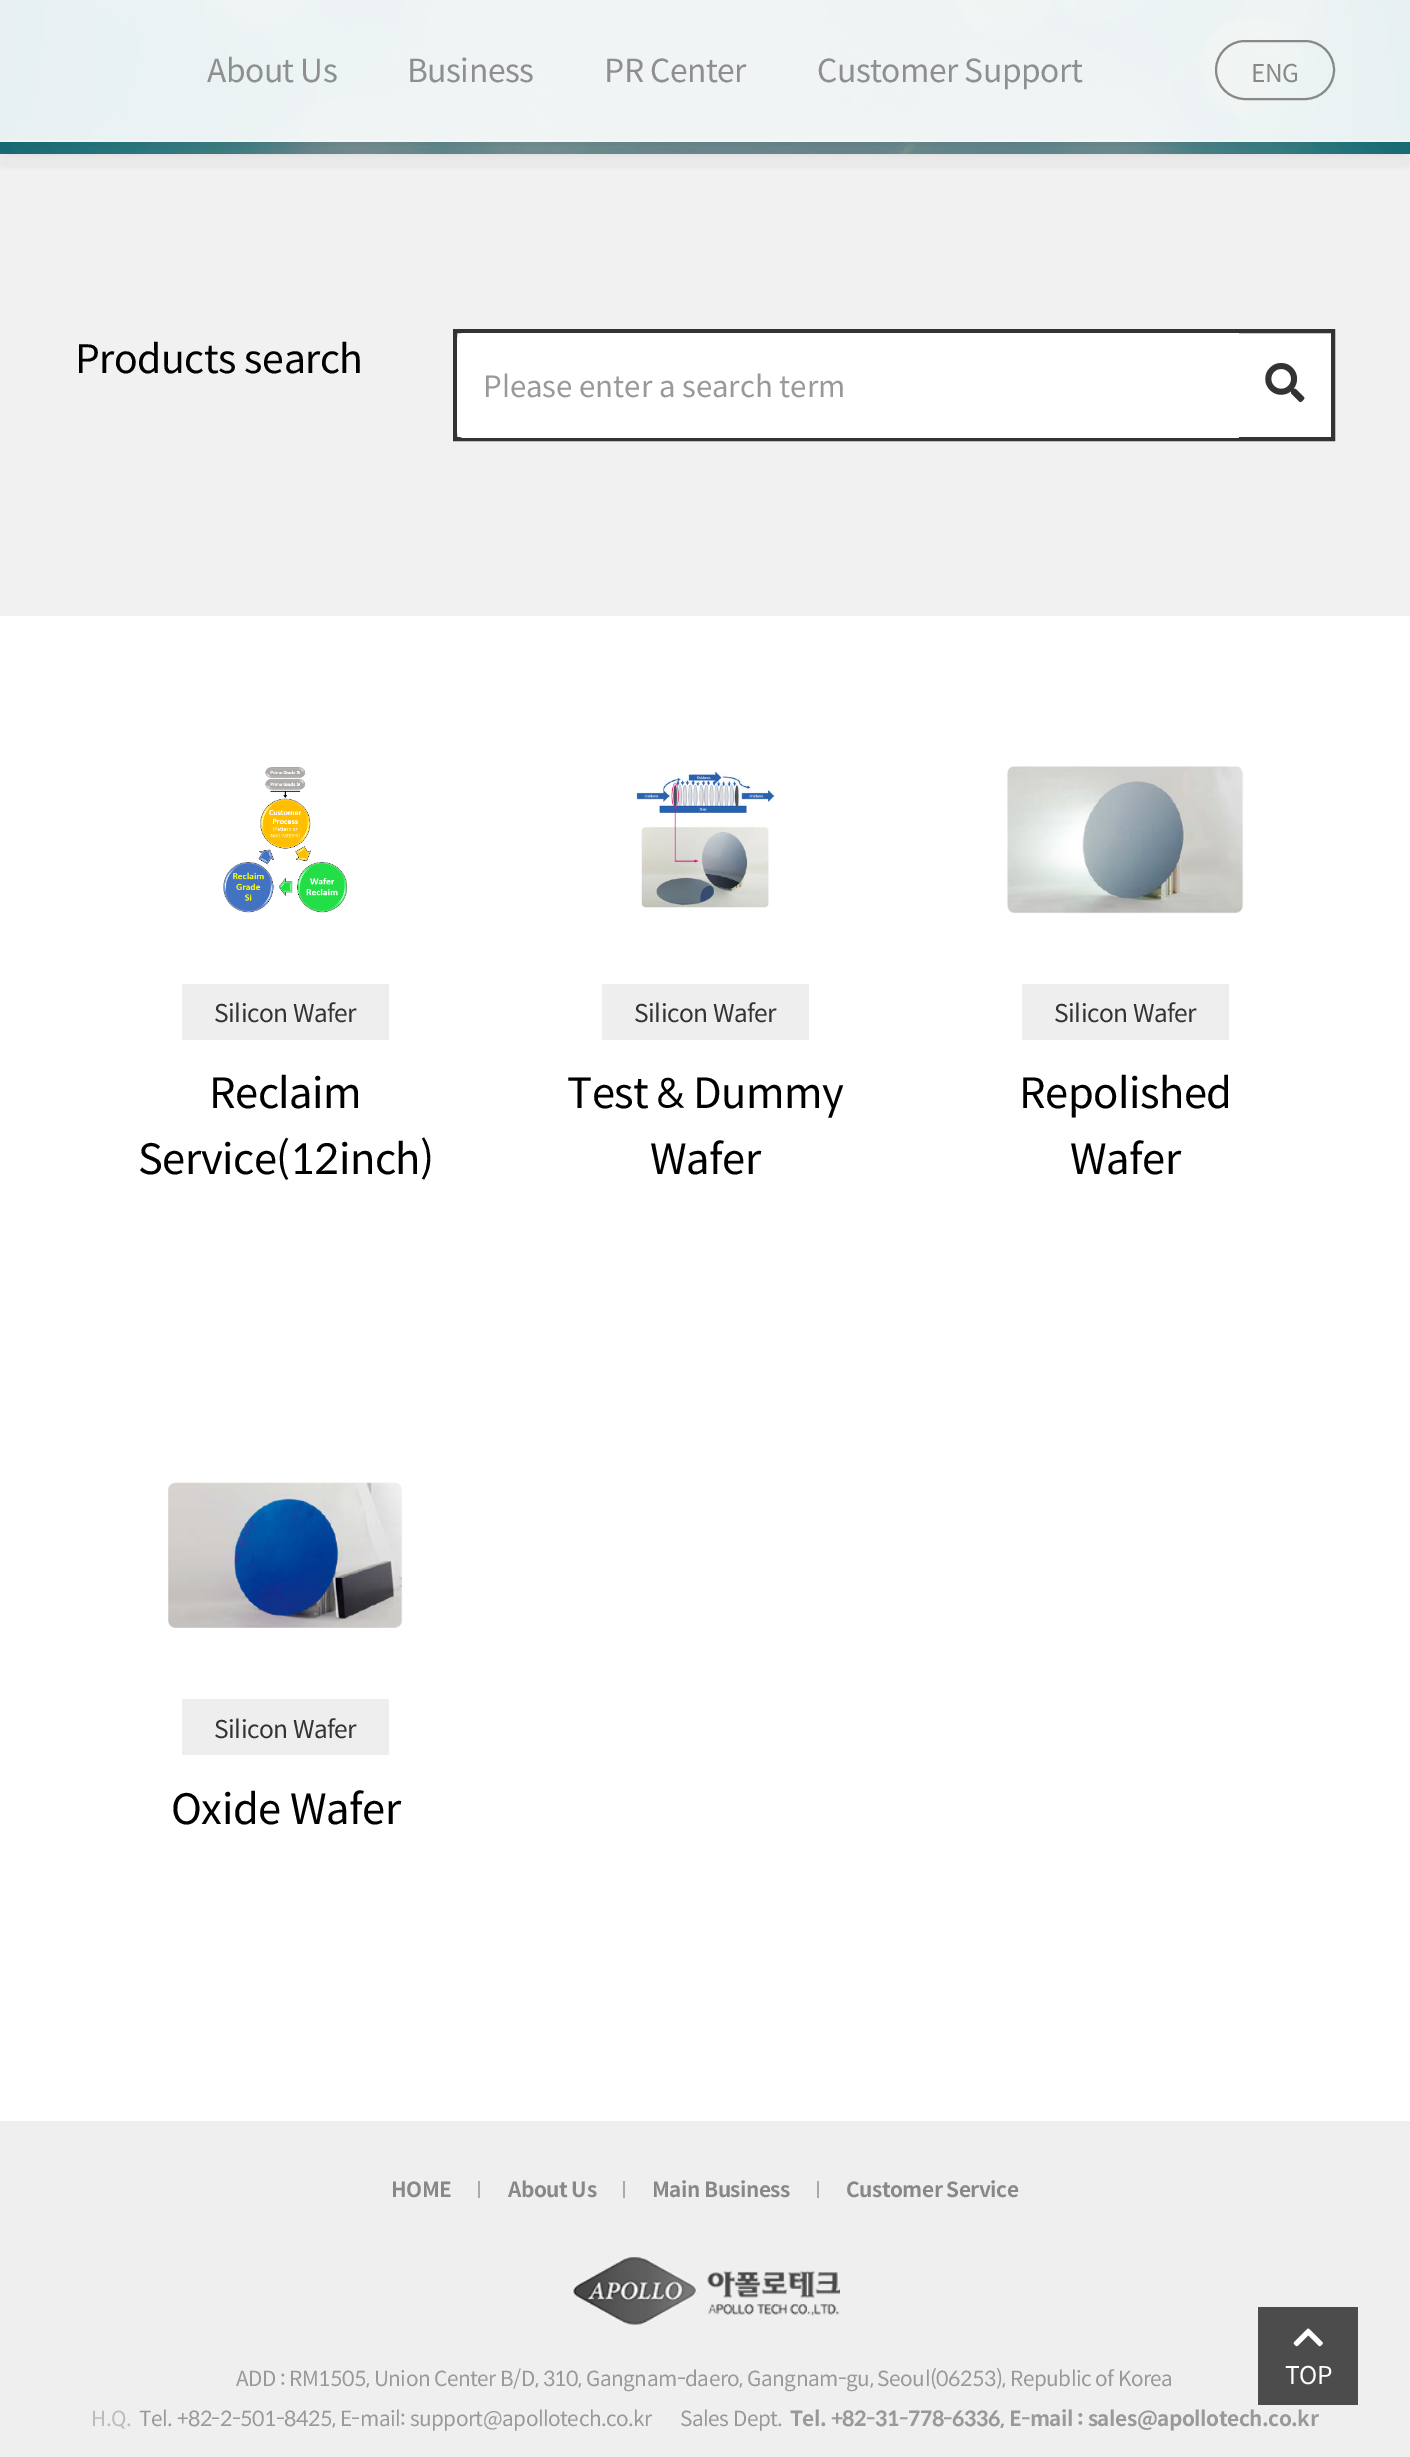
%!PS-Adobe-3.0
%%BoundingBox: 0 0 1410 2457
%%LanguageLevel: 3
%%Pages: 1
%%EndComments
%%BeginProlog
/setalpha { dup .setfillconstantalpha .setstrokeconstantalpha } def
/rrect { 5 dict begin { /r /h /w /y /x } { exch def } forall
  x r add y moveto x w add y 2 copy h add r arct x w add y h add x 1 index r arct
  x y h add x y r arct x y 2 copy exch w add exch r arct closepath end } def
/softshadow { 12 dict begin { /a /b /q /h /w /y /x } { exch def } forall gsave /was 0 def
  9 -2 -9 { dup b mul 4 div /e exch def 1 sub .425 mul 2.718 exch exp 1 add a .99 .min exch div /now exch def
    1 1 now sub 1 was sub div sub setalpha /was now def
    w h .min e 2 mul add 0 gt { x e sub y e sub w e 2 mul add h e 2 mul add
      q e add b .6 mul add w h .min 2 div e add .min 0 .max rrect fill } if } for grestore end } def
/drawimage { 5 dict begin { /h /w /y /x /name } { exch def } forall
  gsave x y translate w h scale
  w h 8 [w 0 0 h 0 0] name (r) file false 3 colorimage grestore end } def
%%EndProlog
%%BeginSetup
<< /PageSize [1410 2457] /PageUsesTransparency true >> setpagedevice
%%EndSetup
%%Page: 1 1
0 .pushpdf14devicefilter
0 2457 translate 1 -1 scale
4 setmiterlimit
1 setgray
0 0 1410 2457 rectfill
(images/1.raw) 0 0 1410 154 drawimage
0.945 setgray
0 154 1410 462 rectfill
gsave
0 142 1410 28 rectclip
0 setgray
0 9 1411 142 0 22 0.1 softshadow
grestore
0.9 setalpha
1 setgray
0 0 1410 142 rectfill
0.3 setalpha
0 140 1410 2 rectfill
1 setalpha
0.533 setgray
2 setlinewidth
1216 41 118 58 29 rrect stroke
1 setgray
newpath 455 331 moveto 1333 331 lineto 1333 439 lineto 455 439 lineto closepath gsave fill grestore
0.2 setgray
4 setlinewidth
stroke
1 setgray
newpath 464 333 moveto 1239 333 lineto 1239 438 lineto 464 438 lineto 460 438 457 435 457 431 curveto 457 340 lineto 457 336 460 333 464 333 curveto closepath fill
(images/2.raw) 1265 362 40 41 drawimage
(images/3.raw) 223 767 124 146 drawimage
0.933 setgray
182 984 207 56 rectfill
(images/4.raw) 634 771 141 137 drawimage
602 984 207 56 rectfill
(images/5.raw) 1007 766 237 148 drawimage
1022 984 207 56 rectfill
(images/6.raw) 168 1482 235 146 drawimage
182 1699 207 56 rectfill
0.937 setgray
0 2121 1410 336 rectfill
0.667 setgray
478 2181 2 17 rectfill
623 2181 2 17 rectfill
817 2181 2 17 rectfill
(images/7.raw) 572 2257 268 69 drawimage
0.298 setgray
1258 2307 100 98 rectfill
(images/8.raw) 1293 2328 30 19 drawimage
/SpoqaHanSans-Regular [31.75 0 0 -31.75 0 0] selectfont
0.557 0.565 0.565 setrgbcolor
207 82 moveto -0.5 0 (About Us) ashow
407 82 moveto -0.5 0 (Business) ashow
604 82 moveto -0.5 0 (PR Center) ashow
817 82 moveto -0.5 0 (Customer Support) ashow
/SpoqaHanSans-Regular [24.5 0 0 -24.5 0 0] selectfont
0.533 setgray
1251 82 moveto -0.5 0 (ENG) ashow
/SpoqaHanSans-Regular [39.25 0 0 -39.25 0 0] selectfont
0 setgray
75 373 moveto -0.5 0 (Products search) ashow
/SpoqaHanSans-Regular [29.4 0 0 -29.4 0 0] selectfont
0.6 setgray
483 397 moveto (Please enter a search term) show
/SpoqaHanSans-Regular [24.5 0 0 -24.5 0 0] selectfont
0.2 setgray
214 1022 moveto -0.5 0 (Silicon Wafer) ashow
/SpoqaHanSans-Regular [41.75 0 0 -41.75 0 0] selectfont
0 setgray
209 1108 moveto -0.5 0 (Reclaim) ashow
138 1174 moveto -0.5 0 (Service\(12inch\)) ashow
/SpoqaHanSans-Regular [24.5 0 0 -24.5 0 0] selectfont
0.2 setgray
634 1022 moveto -0.5 0 (Silicon Wafer) ashow
/SpoqaHanSans-Regular [41.75 0 0 -41.75 0 0] selectfont
0 setgray
567 1108 moveto -0.5 0 (Test & Dummy) ashow
650 1174 moveto -0.5 0 (Wafer) ashow
/SpoqaHanSans-Regular [24.5 0 0 -24.5 0 0] selectfont
0.2 setgray
1054 1022 moveto -0.5 0 (Silicon Wafer) ashow
/SpoqaHanSans-Regular [41.75 0 0 -41.75 0 0] selectfont
0 setgray
1019 1108 moveto -0.5 0 (Repolished) ashow
1070 1174 moveto -0.5 0 (Wafer) ashow
/SpoqaHanSans-Regular [24.5 0 0 -24.5 0 0] selectfont
0.2 setgray
214 1738 moveto -0.5 0 (Silicon Wafer) ashow
/SpoqaHanSans-Regular [41.75 0 0 -41.75 0 0] selectfont
0 setgray
171 1824 moveto -0.5 0 (Oxide Wafer) ashow
/SpoqaHanSans-Bold [20.8 0 0 -20.8 0 0] selectfont
0.533 setgray
391 2197 moveto -0.5 0 (HOME) ashow
508 2197 moveto -0.5 0 (About Us) ashow
652 2197 moveto -0.5 0 (Main Business) ashow
846 2197 moveto -0.5 0 (Customer Service) ashow
/SpoqaHanSans-Regular [20.8 0 0 -20.8 0 0] selectfont
0.6 setgray
236 2386 moveto -0.5 0 (ADD : RM1505, Union Center B/D, 310, Gangnam-daero, Gangnam-gu, Seoul\(06253\), Republic of Korea) ashow
0.733 setgray
91 2426 moveto -0.5 0 (H.Q.) ashow
0.6 setgray
139 2426 moveto -0.5 0 (Tel. +82-2-501-8425, E-mail: support@apollotech.co.kr) ashow
680 2426 moveto -0.5 0 (Sales Dept.) ashow
/SpoqaHanSans-Bold [20.8 0 0 -20.8 0 0] selectfont
790 2426 moveto -0.5 0 (Tel. +82-31-778-6336, E-mail : sales@apollotech.co.kr) ashow
/SpoqaHanSans-Regular [24.5 0 0 -24.5 0 0] selectfont
1 setgray
1285 2384 moveto -0.5 0 (TOP) ashow
.poppdf14devicefilter showpage
%%EOF
